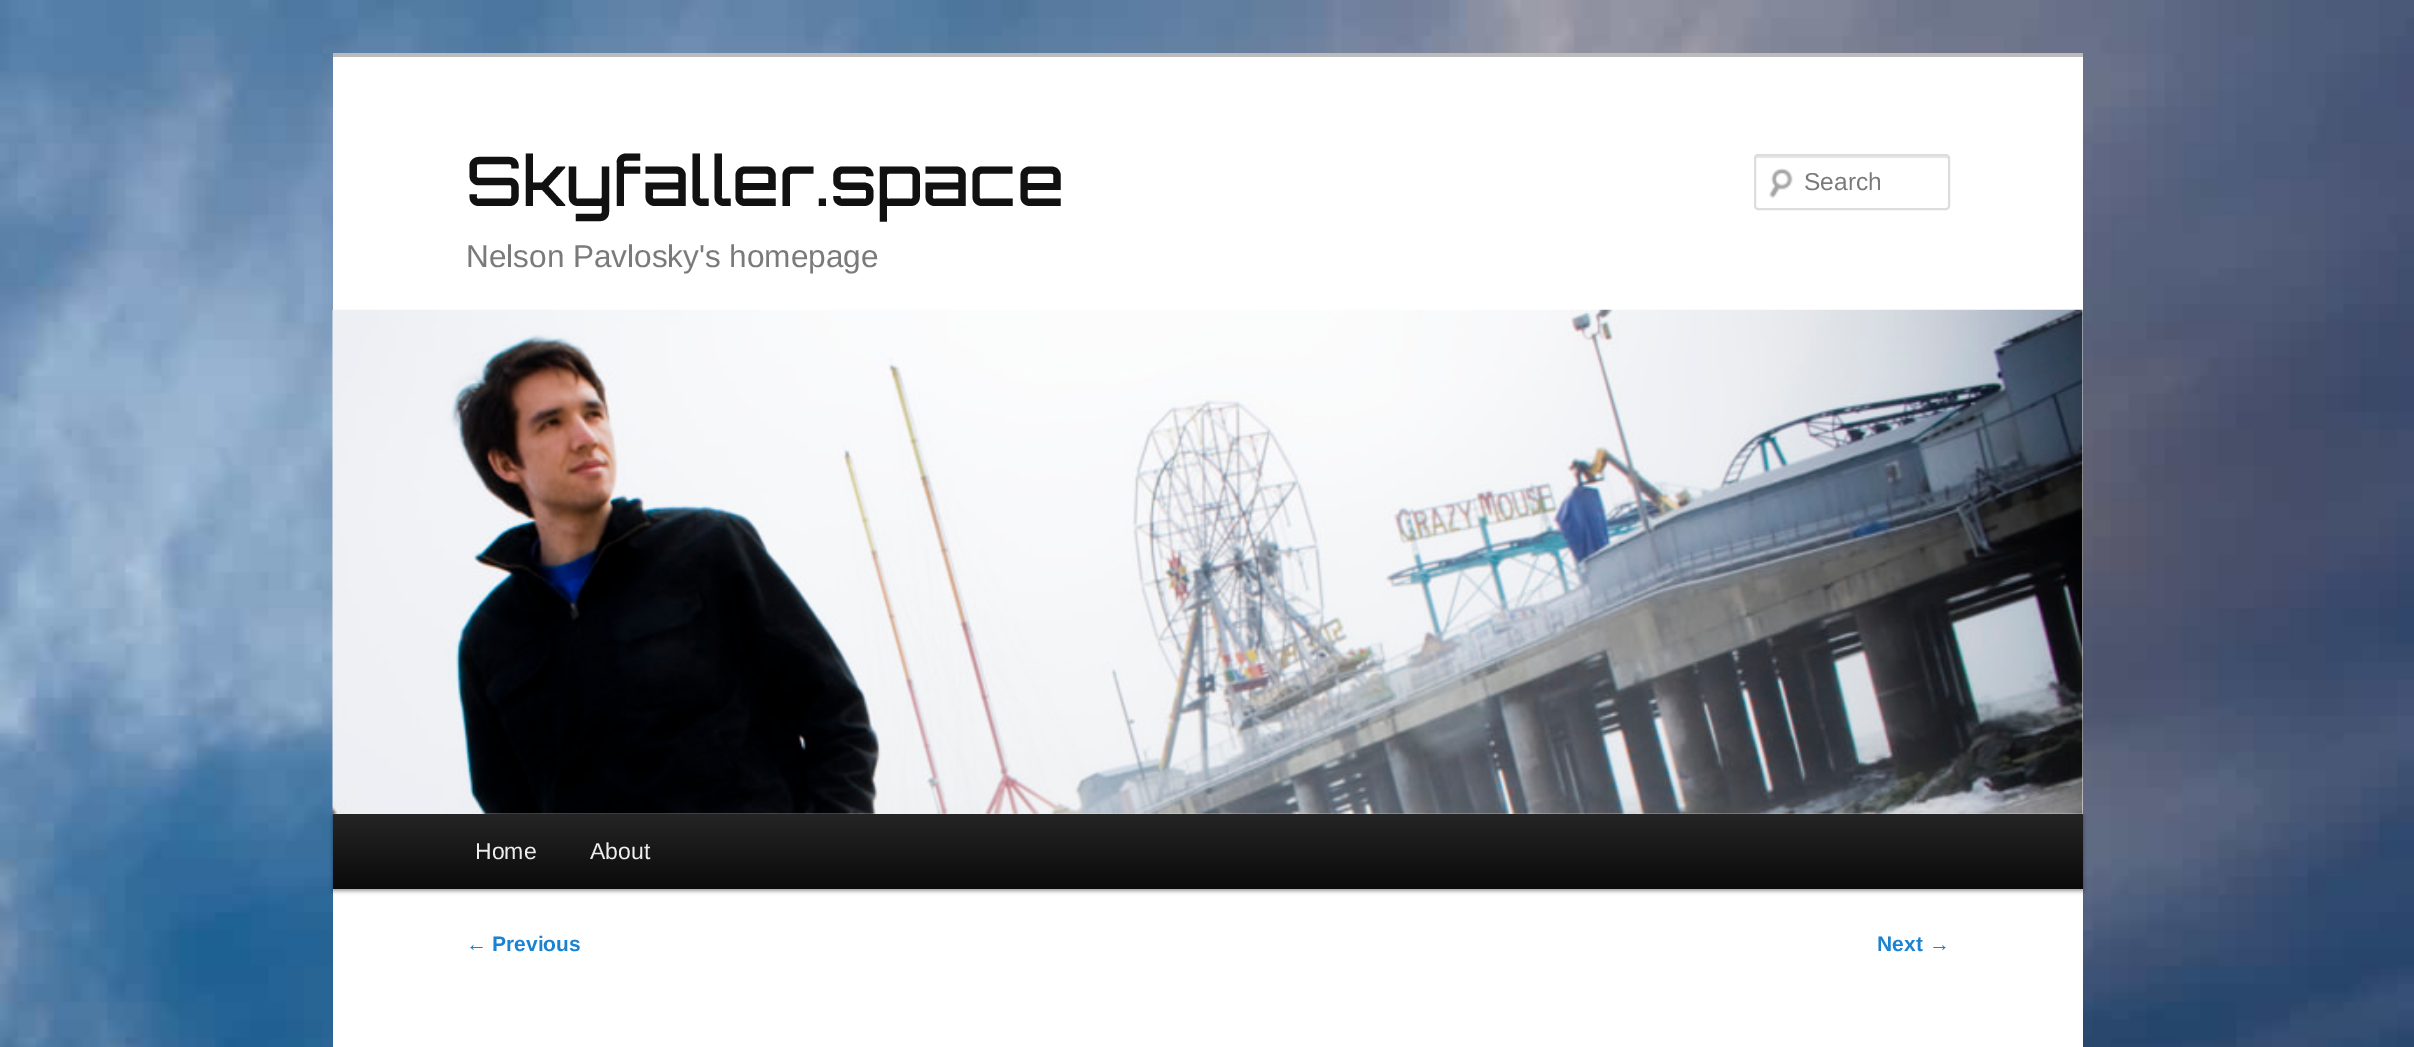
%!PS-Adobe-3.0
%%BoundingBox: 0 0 2414 1047
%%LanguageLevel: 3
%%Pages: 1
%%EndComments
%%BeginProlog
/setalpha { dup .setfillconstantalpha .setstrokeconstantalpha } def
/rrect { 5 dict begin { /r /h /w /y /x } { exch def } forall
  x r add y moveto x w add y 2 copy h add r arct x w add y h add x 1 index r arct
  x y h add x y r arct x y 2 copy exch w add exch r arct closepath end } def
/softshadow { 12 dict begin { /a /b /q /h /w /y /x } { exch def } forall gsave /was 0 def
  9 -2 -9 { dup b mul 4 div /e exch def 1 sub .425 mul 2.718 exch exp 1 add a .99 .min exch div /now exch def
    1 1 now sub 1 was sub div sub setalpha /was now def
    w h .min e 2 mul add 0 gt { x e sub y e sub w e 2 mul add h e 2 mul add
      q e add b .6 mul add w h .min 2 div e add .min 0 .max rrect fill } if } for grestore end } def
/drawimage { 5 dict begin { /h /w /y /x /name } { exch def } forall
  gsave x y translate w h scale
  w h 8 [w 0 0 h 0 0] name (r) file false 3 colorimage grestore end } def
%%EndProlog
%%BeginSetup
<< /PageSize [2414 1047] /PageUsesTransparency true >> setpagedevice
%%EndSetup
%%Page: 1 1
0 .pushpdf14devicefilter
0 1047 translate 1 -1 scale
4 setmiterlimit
1 setgray
0 0 2414 1047 rectfill
(images/1.raw) 0 0 2414 1047 drawimage
333 57 1750 990 rectfill
0.733 setgray
333 53 1750 4 rectfill
(images/2.raw) 1769 168 24 30 drawimage
0.902 setgray
newpath 1757 158 moveto 1946 158 lineto 1948 159 lineto 1948 158 lineto 1948 157 1947 156 1946 156 curveto 1757 156 lineto 1756 156 1755 157 1755 158 curveto 1755 159 lineto 1755 158 1756 158 1757 158 curveto closepath fill
0.867 setgray
2 setlinewidth
1755 155 194 54 3 rrect stroke
0 setgray
333 816 1750 75 0 2 0.4 softshadow
(images/3.raw) 332 309 1751 505 drawimage
gsave newpath 333 814 moveto 2083 814 lineto 2083 889 lineto 333 889 lineto closepath clip newpath
<< /ShadingType 2 /ColorSpace /DeviceRGB /Coords [1208 814 1208 889] /Extend [true true] /Function << /FunctionType 2 /Domain [0 1] /C0 [0.145 0.145 0.145] /C1 [0.039 0.039 0.039] /N 1 >> >> shfill grestore
/Orbitron-Medium [68.25 0 0 -68.25 0 0] selectfont
0.067 setgray
466 206 moveto (Skyfaller.space) show
/LiberationSans-Regular [31.5 0 0 -31.5 0 0] selectfont
0.478 setgray
466 267 moveto (Nelson Pavlosky's homepage) show
/LiberationSans-Regular [24.5 0 0 -24.5 0 0] selectfont
1804 190 moveto (Search) show
/LiberationSans-Regular [23 0 0 -23 0 0] selectfont
0.933 setgray
475 859 moveto (Home) show
590 859 moveto (About) show
/LiberationSans-Regular [21 0 0 -21 0 0] selectfont
0.098 0.51 0.82 setrgbcolor
466 951 moveto (←) show
/LiberationSans-Bold [21 0 0 -21 0 0] selectfont
492 951 moveto (Previous) show
1877 951 moveto (Next) show
/LiberationSans-Regular [21 0 0 -21 0 0] selectfont
1929 951 moveto (→) show
.poppdf14devicefilter showpage
%%EOF
